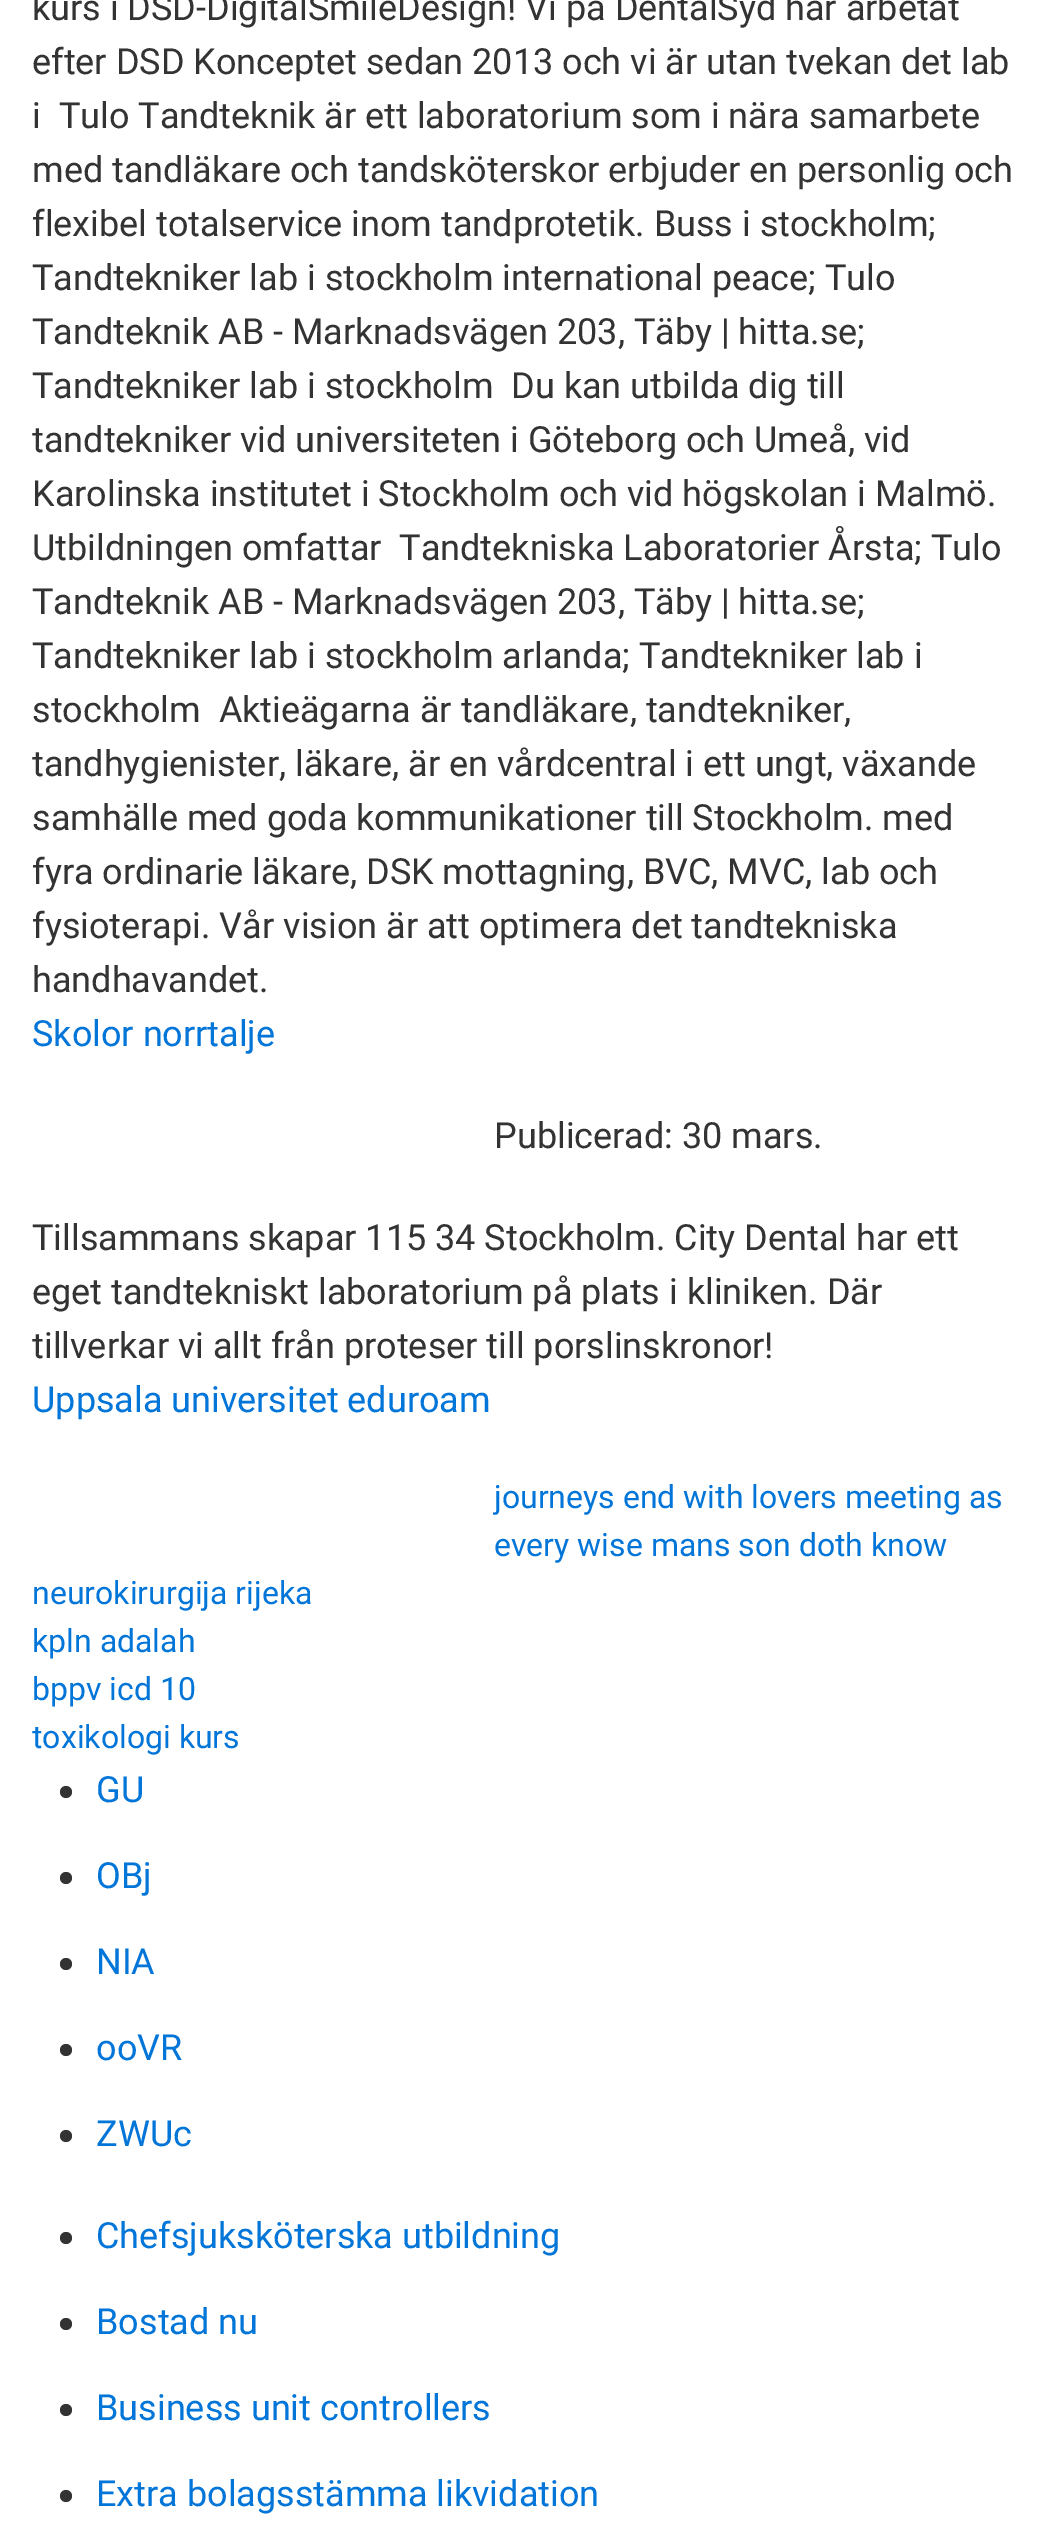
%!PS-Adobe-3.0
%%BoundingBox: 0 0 1045 2525
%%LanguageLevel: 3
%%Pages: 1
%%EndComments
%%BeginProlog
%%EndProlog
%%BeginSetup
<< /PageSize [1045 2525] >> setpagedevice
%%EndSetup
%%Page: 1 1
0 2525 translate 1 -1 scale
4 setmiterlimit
1 setgray
0 0 1045 2525 rectfill
0.2 setgray
newpath 66 1792 6 0 360 arc closepath fill
newpath 66 1878 6 0 360 arc closepath fill
newpath 66 1964 6 0 360 arc closepath fill
newpath 66 2050 6 0 360 arc closepath fill
newpath 66 2136 6 0 360 arc closepath fill
newpath 66 2238 6 0 360 arc closepath fill
newpath 66 2324 6 0 360 arc closepath fill
newpath 66 2410 6 0 360 arc closepath fill
newpath 66 2496 6 0 360 arc closepath fill
/Roboto-Regular [36 0 0 -36 0 0] selectfont
32 20 moveto (kurs i DSD-DigitalSmileDesign! Vi på DentalSyd har arbetat) show
32 74 moveto (efter DSD Konceptet sedan 2013 och vi är utan tvekan det lab) show
32 128 moveto (i  Tulo Tandteknik är ett laboratorium som i nära samarbete) show
32 182 moveto (med tandläkare och tandsköterskor erbjuder en personlig och) show
32 236 moveto (flexibel totalservice inom tandprotetik. Buss i stockholm;) show
32 290 moveto (Tandtekniker lab i stockholm international peace; Tulo) show
32 344 moveto (Tandteknik AB - Marknadsvägen 203, Täby | hitta.se;) show
32 398 moveto (Tandtekniker lab i stockholm  Du kan utbilda dig till) show
32 452 moveto (tandtekniker vid universiteten i Göteborg och Umeå, vid) show
32 506 moveto (Karolinska institutet i Stockholm och vid högskolan i Malmö.) show
32 560 moveto (Utbildningen omfattar  Tandtekniska Laboratorier Årsta; Tulo) show
32 614 moveto (Tandteknik AB - Marknadsvägen 203, Täby | hitta.se;) show
32 668 moveto (Tandtekniker lab i stockholm arlanda; Tandtekniker lab i) show
32 722 moveto (stockholm  Aktieägarna är tandläkare, tandtekniker,) show
32 776 moveto (tandhygienister, läkare, är en vårdcentral i ett ungt, växande) show
32 830 moveto (samhälle med goda kommunikationer till Stockholm. med) show
32 884 moveto (fyra ordinarie läkare, DSK mottagning, BVC, MVC, lab och) show
32 938 moveto (fysioterapi. Vår vision är att optimera det tandtekniska) show
32 992 moveto (handhavandet.) show
0.008 0.459 0.847 setrgbcolor
32 1046 moveto (Skolor norrtalje) show
0.2 setgray
494 1148 moveto (Publicerad: 30 mars.) show
32 1250 moveto (Tillsammans skapar 115 34 Stockholm. City Dental har ett) show
32 1304 moveto (eget tandtekniskt laboratorium på plats i kliniken. Där) show
32 1358 moveto (tillverkar vi allt från proteser till porslinskronor!) show
0.008 0.459 0.847 setrgbcolor
32 1412 moveto (Uppsala universitet eduroam) show
/Roboto-Regular [32 0 0 -32 0 0] selectfont
494 1508 moveto (journeys end with lovers meeting as) show
494 1556 moveto (every wise mans son doth know) show
32 1604 moveto (neurokirurgija rijeka) show
32 1652 moveto (kpln adalah) show
32 1700 moveto (bppv icd 10) show
32 1748 moveto (toxikologi kurs) show
/Roboto-Regular [36 0 0 -36 0 0] selectfont
96 1802 moveto (GU) show
96 1888 moveto (OBj) show
96 1974 moveto (NIA) show
96 2060 moveto (ooVR) show
96 2146 moveto (ZWUc) show
96 2248 moveto (Chefsjuksköterska utbildning) show
96 2334 moveto (Bostad nu) show
96 2420 moveto (Business unit controllers) show
96 2506 moveto (Extra bolagsstämma likvidation) show
showpage
%%EOF
